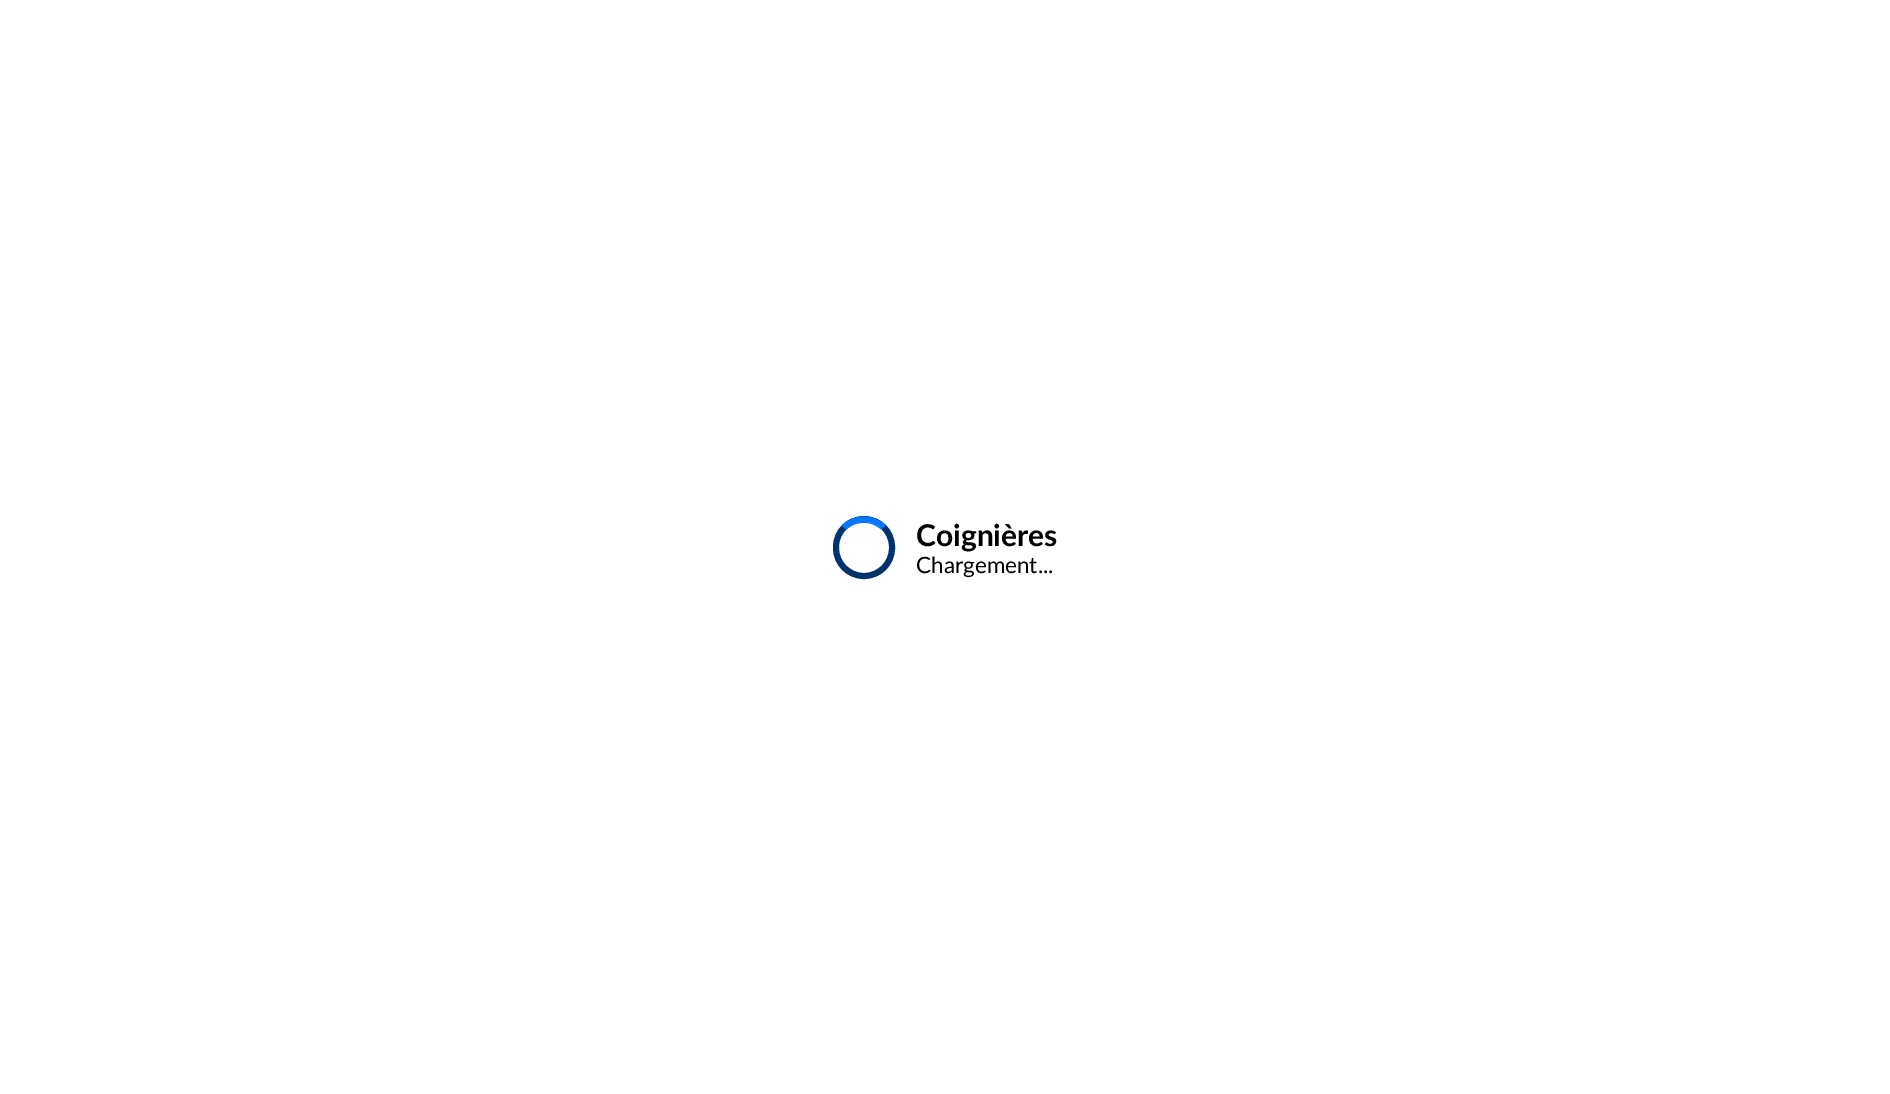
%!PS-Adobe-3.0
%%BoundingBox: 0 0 1890 1094
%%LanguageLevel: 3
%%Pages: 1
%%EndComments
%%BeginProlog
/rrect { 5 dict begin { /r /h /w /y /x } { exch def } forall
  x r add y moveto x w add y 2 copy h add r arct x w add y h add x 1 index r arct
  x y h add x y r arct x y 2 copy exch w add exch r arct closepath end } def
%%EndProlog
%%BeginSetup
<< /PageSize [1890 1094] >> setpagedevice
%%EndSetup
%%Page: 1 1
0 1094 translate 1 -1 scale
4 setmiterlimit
1 setgray
0 0 1890 1094 rectfill
0 0.196 0.427 setrgbcolor
6 setlinewidth
836 519 56 57 28 rrect stroke
0.027 0.471 1 setrgbcolor
6.2 setlinewidth
newpath 844 527.5 moveto 854.5 517 873 517 883.5 527.5 curveto stroke
/Lato-Bold [30 0 0 -30 0 0] selectfont
0 setgray
916 546 moveto (Coignières) show
/Lato-Regular [22.5 0 0 -22.5 0 0] selectfont
916 573 moveto (Chargement...) show
showpage
%%EOF
